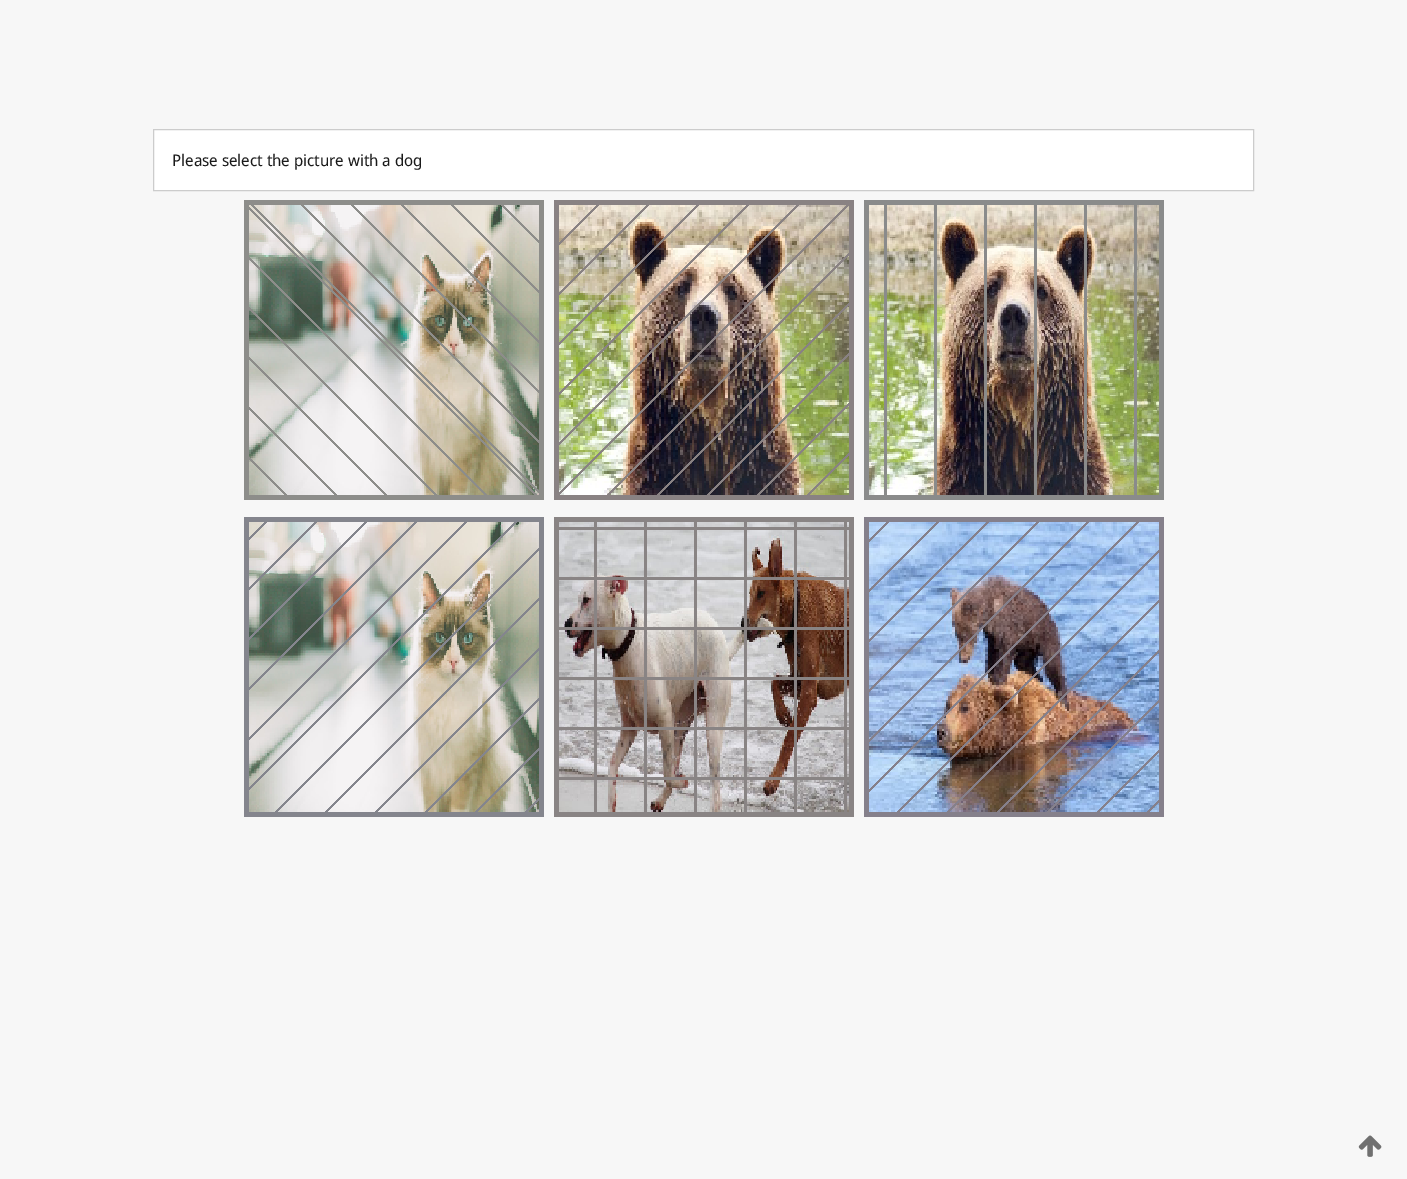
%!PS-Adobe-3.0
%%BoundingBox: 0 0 1407 1179
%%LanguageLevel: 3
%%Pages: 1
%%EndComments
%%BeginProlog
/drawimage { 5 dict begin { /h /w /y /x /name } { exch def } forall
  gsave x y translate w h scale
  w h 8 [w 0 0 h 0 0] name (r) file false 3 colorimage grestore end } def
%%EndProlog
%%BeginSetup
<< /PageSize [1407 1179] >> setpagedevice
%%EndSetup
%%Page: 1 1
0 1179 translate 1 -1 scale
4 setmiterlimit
0.969 setgray
0 0 1407 1179 rectfill
1 setgray
newpath 153.5 129.5 moveto 1253.5 129.5 lineto 1253.5 190.5 lineto 153.5 190.5 lineto closepath gsave fill grestore
0.8 setgray
stroke
(images/1.raw) 244 200 300 300 drawimage
(images/2.raw) 554 200 300 300 drawimage
(images/3.raw) 864 200 300 300 drawimage
(images/4.raw) 244 517 300 300 drawimage
(images/5.raw) 554 517 300 300 drawimage
(images/6.raw) 864 517 300 300 drawimage
(images/7.raw) 1358 1135 24 22 drawimage
/NotoSansDisplay-Regular [16 0 0 -16 0 0] selectfont
0.102 setgray
172 166 moveto (Please select the picture with a dog) show
showpage
%%EOF
